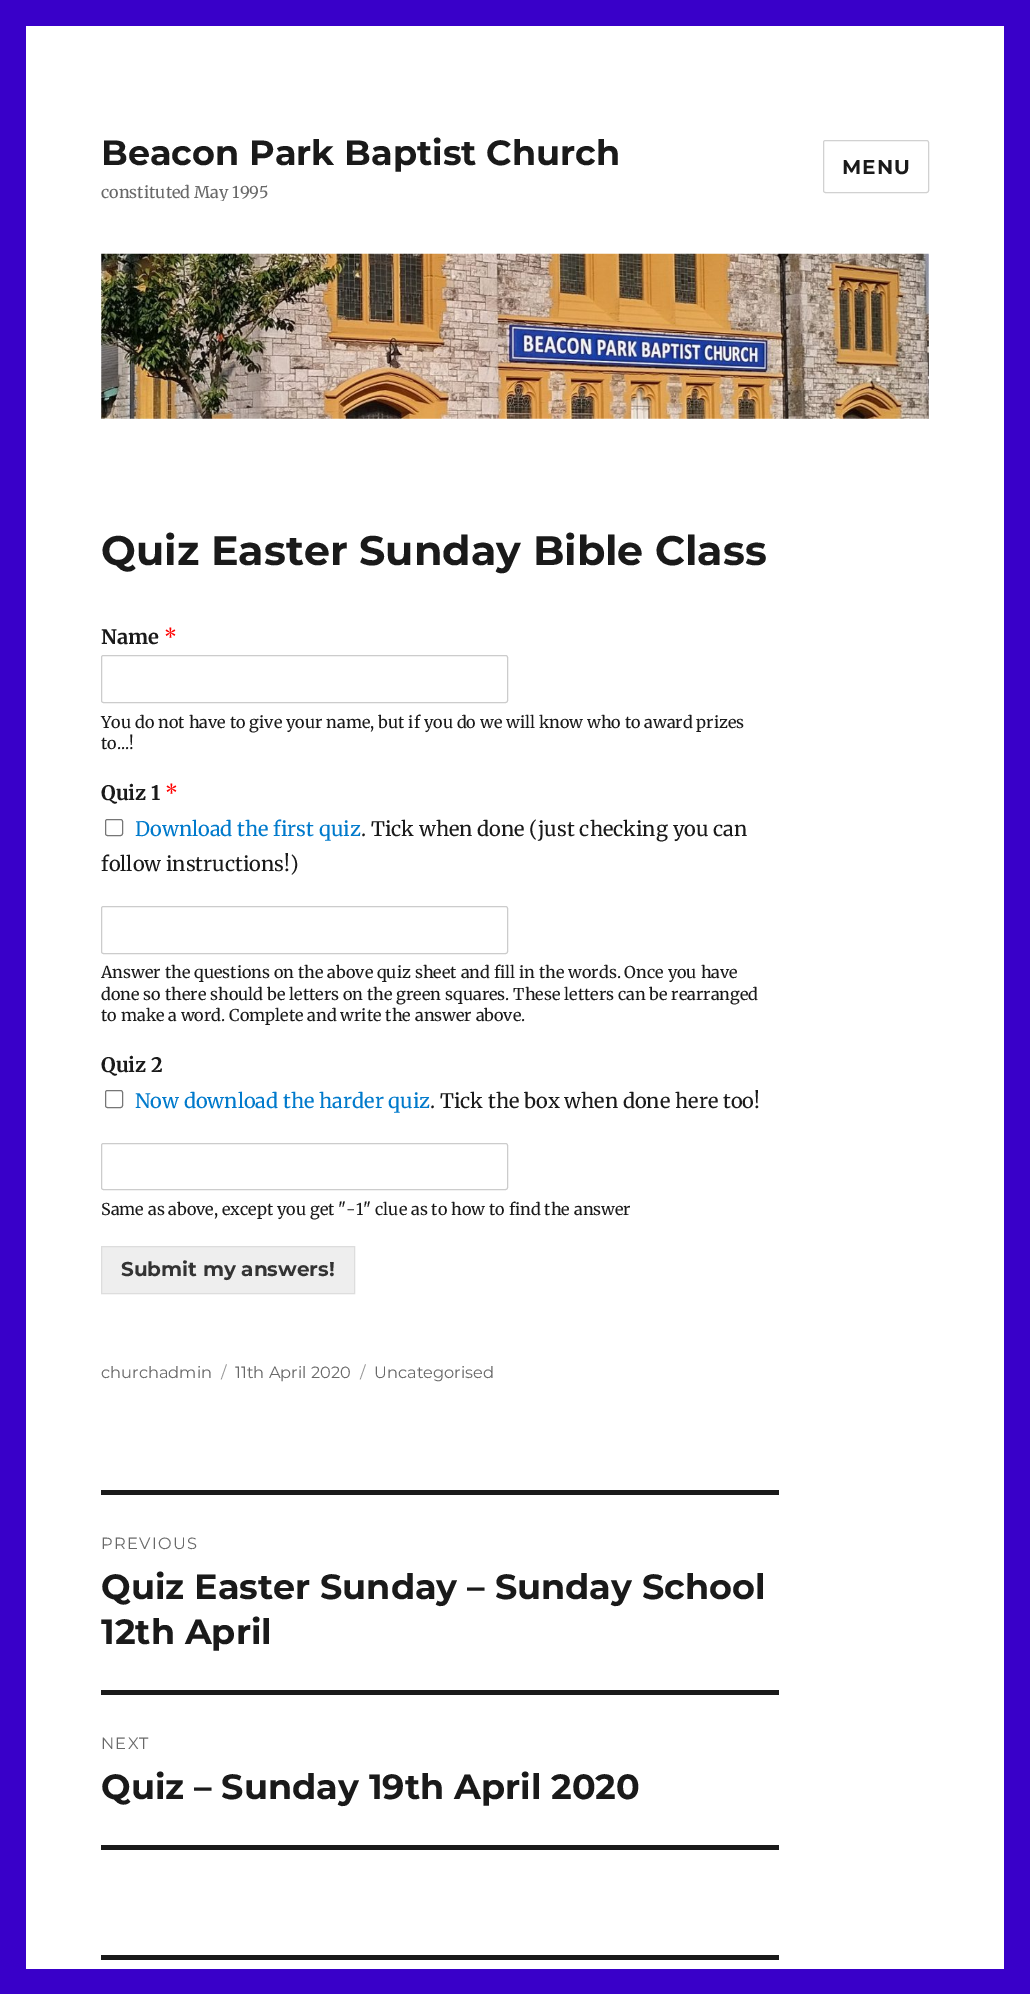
%!PS-Adobe-3.0
%%BoundingBox: 0 0 1030 1994
%%LanguageLevel: 3
%%Pages: 1
%%EndComments
%%BeginProlog
/rrect { 5 dict begin { /r /h /w /y /x } { exch def } forall
  x r add y moveto x w add y 2 copy h add r arct x w add y h add x 1 index r arct
  x y h add x y r arct x y 2 copy exch w add exch r arct closepath end } def
/drawimage { 5 dict begin { /h /w /y /x /name } { exch def } forall
  gsave x y translate w h scale
  w h 8 [w 0 0 h 0 0] name (r) file false 3 colorimage grestore end } def
%%EndProlog
%%BeginSetup
<< /PageSize [1030 1994] >> setpagedevice
%%EndSetup
%%Page: 1 1
0 1994 translate 1 -1 scale
4 setmiterlimit
0.224 0 0.788 setrgbcolor
0 0 1030 1994 rectfill
1 setgray
26 26 978 1943 rectfill
0.82 setgray
823.5 140.5 105 52 2 rrect stroke
(images/1.raw) 101 253 828 166 drawimage
0.8 setgray
101.5 655.5 406 47 2 rrect stroke
0.463 setgray
105.5 819.5 17 16 2 rrect stroke
0.8 setgray
101.5 906.5 406 47 2 rrect stroke
0.463 setgray
105.5 1090.5 17 17 2 rrect stroke
0.8 setgray
101.5 1143.5 406 46 2 rrect stroke
0.933 setgray
newpath 101.5 1246.5 moveto 354.5 1246.5 lineto 354.5 1293.5 lineto 101.5 1293.5 lineto closepath gsave fill grestore
0.867 setgray
stroke
0.102 setgray
101 1490 678 5 rectfill
101 1845 678 5 rectfill
101 1690 678 5 rectfill
101 1955 678 5 rectfill
/Montserrat-Bold [35 0 0 -35 0 0] selectfont
101 165 moveto (Beacon Park Baptist Church) show
gsave
101 131 519 70 rectclip
/Merriweather-Regular [16.25 0 0 -16.25 0 0] selectfont
0.408 setgray
101 198 moveto (constituted May 1995) show
grestore
/Montserrat-Bold [20 0 0 -20 0 0] selectfont
842 174 moveto 1 0 (MENU) ashow
/Montserrat-Bold [41.25 0 0 -41.25 0 0] selectfont
101 565 moveto (Quiz Easter Sunday Bible Class) show
/Merriweather-Bold [20 0 0 -20 0 0] selectfont
101 644 moveto (Name) show
/Merriweather-Regular [20 0 0 -20 0 0] selectfont
1 0 0 setrgbcolor
164 644 moveto (*) show
/Merriweather-Regular [16.25 0 0 -16.25 0 0] selectfont
0.102 setgray
101 728 moveto (You do not have to give your name, but if you do we will know who to award prizes) show
101 749 moveto (to...!) show
/Merriweather-Bold [20 0 0 -20 0 0] selectfont
101 800 moveto (Quiz 1) show
/Merriweather-Regular [20 0 0 -20 0 0] selectfont
1 0 0 setrgbcolor
165 800 moveto (*) show
0 0.478 0.8 setrgbcolor
135 836 moveto (Download the first quiz) show
0.102 setgray
361 836 moveto (. Tick when done \(just checking you can) show
101 871 moveto (follow instructions!\)) show
/Merriweather-Regular [16.25 0 0 -16.25 0 0] selectfont
101 978 moveto (Answer the questions on the above quiz sheet and fill in the words. Once you have) show
101 1000 moveto (done so there should be letters on the green squares. These letters can be rearranged) show
101 1021 moveto (to make a word. Complete and write the answer above.) show
/Merriweather-Bold [20 0 0 -20 0 0] selectfont
101 1072 moveto (Quiz 2) show
/Merriweather-Regular [20 0 0 -20 0 0] selectfont
0 0.478 0.8 setrgbcolor
135 1108 moveto (Now download the harder quiz) show
0.102 setgray
430 1108 moveto (. Tick the box when done here too!) show
/Merriweather-Regular [16.25 0 0 -16.25 0 0] selectfont
101 1215 moveto (Same as above, except you get "-1" clue as to how to find the answer) show
/Montserrat-Bold [20 0 0 -20 0 0] selectfont
0.2 setgray
121 1276 moveto (Submit my answers!) show
/Montserrat-Regular [16.25 0 0 -16.25 0 0] selectfont
0.408 setgray
101 1378 moveto (churchadmin) show
0.584 setgray
221 1378 moveto (/) show
0.408 setgray
235 1378 moveto (11th April 2020) show
0.584 setgray
360 1378 moveto (/) show
0.408 setgray
374 1378 moveto (Uncategorised) show
101 1549 moveto 1.25 0 (PREVIOUS) ashow
/Montserrat-Bold [35 0 0 -35 0 0] selectfont
0.102 setgray
101 1599 moveto (Quiz Easter Sunday – Sunday School) show
101 1644 moveto (12th April) show
/Montserrat-Regular [16.25 0 0 -16.25 0 0] selectfont
0.408 setgray
101 1749 moveto 1.25 0 (NEXT) ashow
/Montserrat-Bold [35 0 0 -35 0 0] selectfont
0.102 setgray
101 1799 moveto (Quiz – Sunday 19th April 2020) show
showpage
%%EOF
